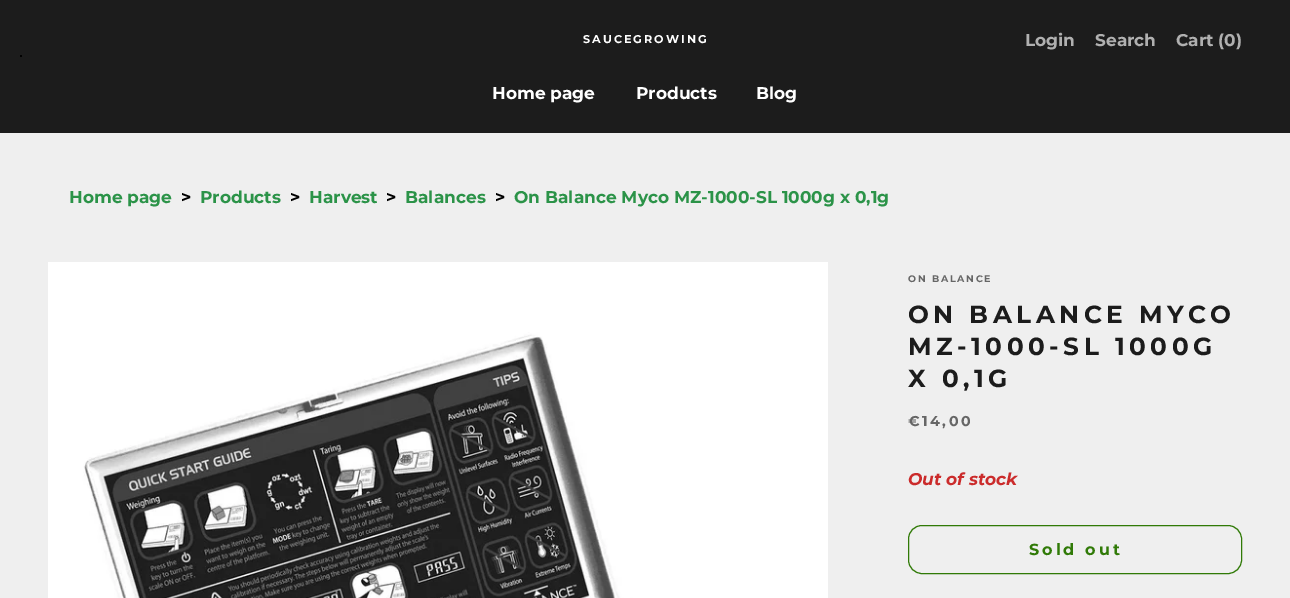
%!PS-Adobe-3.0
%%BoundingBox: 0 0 1290 598
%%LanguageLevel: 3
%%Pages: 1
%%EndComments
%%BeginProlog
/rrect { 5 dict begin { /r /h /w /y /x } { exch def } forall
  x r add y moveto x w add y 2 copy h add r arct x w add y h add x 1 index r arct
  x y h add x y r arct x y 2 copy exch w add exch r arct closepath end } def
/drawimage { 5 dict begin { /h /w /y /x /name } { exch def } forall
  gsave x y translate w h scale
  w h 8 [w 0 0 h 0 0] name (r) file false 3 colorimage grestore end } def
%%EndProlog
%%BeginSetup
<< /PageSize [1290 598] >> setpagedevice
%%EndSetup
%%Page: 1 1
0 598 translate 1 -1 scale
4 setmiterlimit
0.937 setgray
0 0 1290 598 rectfill
0.11 setgray
0 0 1290 133 rectfill
0 setgray
newpath 21 56 1 0 360 arc closepath fill
(images/1.raw) 48 262 780 336 drawimage
0.188 0.478 0.027 setrgbcolor
908.5 525.5 333 48 13.5 rrect stroke
/Montserrat-Bold [11.25 0 0 -11.25 0 0] selectfont
1 setgray
583 43 moveto 2 0 (SAUCEGROWING) ashow
/Montserrat-Bold [17 0 0 -17 0 0] selectfont
0.69 setgray
1025 46 moveto (Login) show
1095 46 moveto (Search) show
1176 46 moveto (Cart \(0\)) show
1 setgray
492 99 moveto (Home page) show
636 99 moveto (Products) show
756 99 moveto (Blog) show
0.169 0.576 0.282 setrgbcolor
69 203 moveto (Home page) show
0 setgray
181 203 moveto (>) show
0.169 0.576 0.282 setrgbcolor
200 203 moveto (Products) show
0 setgray
290 203 moveto (>) show
0.169 0.576 0.282 setrgbcolor
309 203 moveto (Harvest) show
0 setgray
386 203 moveto (>) show
0.169 0.576 0.282 setrgbcolor
405 203 moveto (Balances) show
0 setgray
495 203 moveto (>) show
0.169 0.576 0.282 setrgbcolor
514 203 moveto (On Balance Myco MZ-1000-SL 1000g x 0,1g) show
/Montserrat-Bold [9.5 0 0 -9.5 0 0] selectfont
0.4 setgray
908 282 moveto 1.75 0 (ON BALANCE) ashow
/Montserrat-Bold [24.75 0 0 -24.75 0 0] selectfont
0.11 setgray
908 323 moveto 4.5 0 (ON BALANCE MYCO) ashow
908 355 moveto 4.5 0 (MZ-1000-SL 1000G) ashow
908 387 moveto 4.5 0 (X 0,1G) ashow
/Montserrat-Bold [14.25 0 0 -14.25 0 0] selectfont
0.4 setgray
908 426 moveto 2.5 0 (€14,00) ashow
/Montserrat-BoldItalic [17 0 0 -17 0 0] selectfont
0.796 0.169 0.169 setrgbcolor
908 485 moveto (Out of stock) show
/Montserrat-Bold [16 0 0 -16 0 0] selectfont
0.188 0.478 0.027 setrgbcolor
1029 555 moveto 3 0 (Sold out) ashow
showpage
%%EOF
